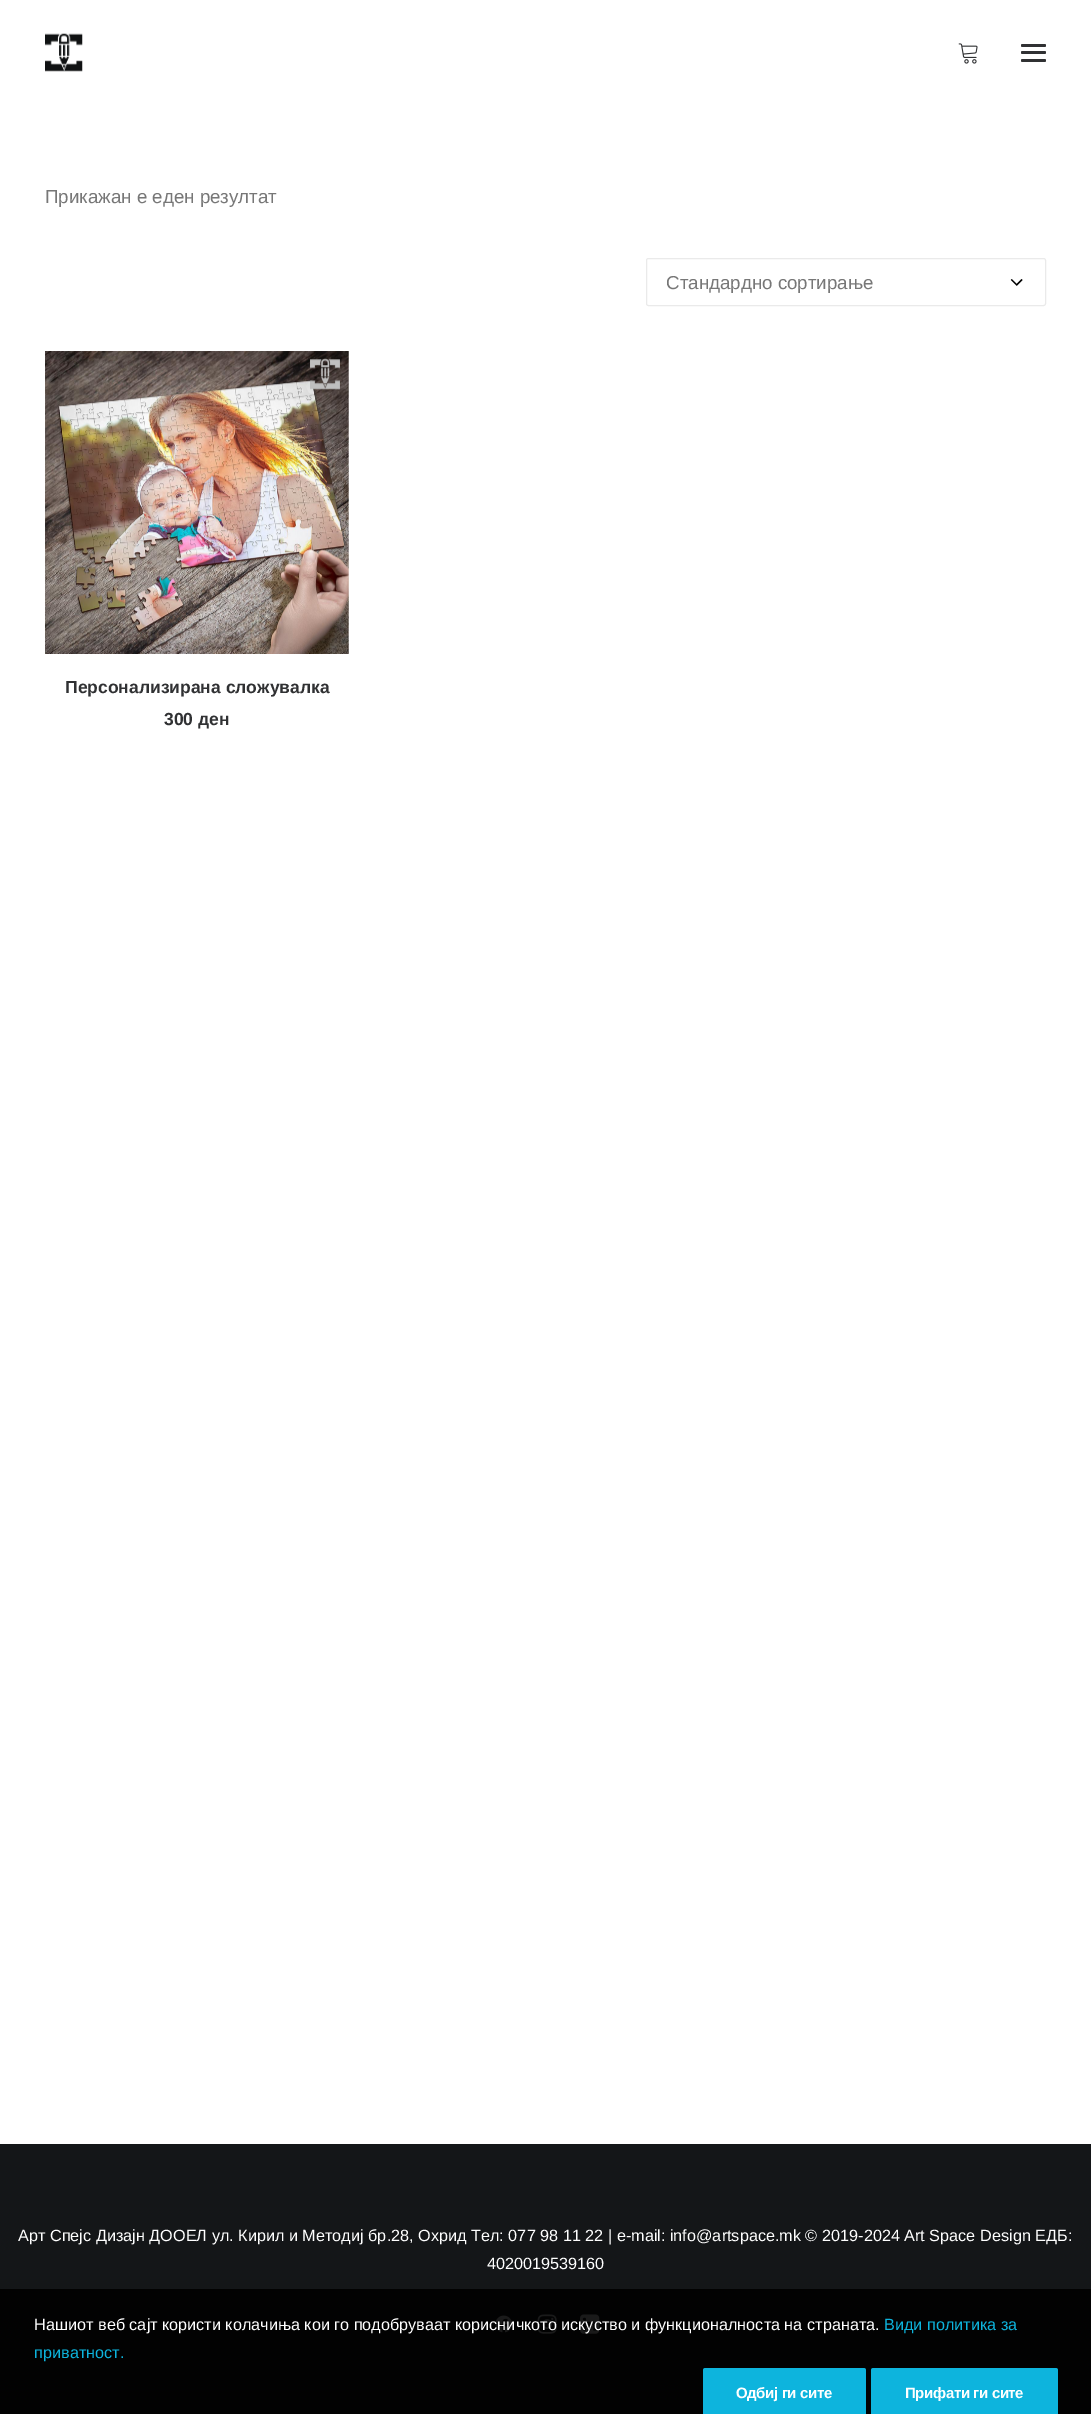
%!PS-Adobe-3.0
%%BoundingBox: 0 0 1091 2414
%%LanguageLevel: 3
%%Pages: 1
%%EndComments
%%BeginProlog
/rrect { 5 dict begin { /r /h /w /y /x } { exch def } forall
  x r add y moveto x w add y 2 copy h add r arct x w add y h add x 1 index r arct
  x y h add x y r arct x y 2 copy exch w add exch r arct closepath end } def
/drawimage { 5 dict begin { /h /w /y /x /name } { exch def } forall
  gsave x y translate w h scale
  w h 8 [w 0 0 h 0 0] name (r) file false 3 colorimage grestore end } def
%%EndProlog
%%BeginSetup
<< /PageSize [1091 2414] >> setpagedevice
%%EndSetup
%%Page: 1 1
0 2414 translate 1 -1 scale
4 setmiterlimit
0.078 0.086 0.094 setrgbcolor
0 0 1091 2414 rectfill
0.008 setgray
0 2289 1091 125 rectfill
1 setgray
0 0 1091 2144 rectfill
(images/1.raw) 45 33 38 39 drawimage
(images/2.raw) 958 43 20 21 drawimage
0.188 0.192 0.2 setrgbcolor
1021 51 25 3 1.5 rrect fill
1021 44 25 3 1.5 rrect fill
1021 59 25 3 1.5 rrect fill
(images/3.raw) 1010 279 13 7 drawimage
0.918 setgray
646.5 258.5 399 47 2 rrect stroke
(images/4.raw) 45 351 304 303 drawimage
(images/5.raw) 495 2315 18 18 drawimage
(images/6.raw) 537 2314 20 20 drawimage
(images/7.raw) 580 2314 20 20 drawimage
0.051 0.706 0.867 setrgbcolor
newpath 705.5 2368 moveto 863.5 2368 lineto 865 2368 866 2369 866 2370.5 curveto 866 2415 lineto 703 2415 lineto 703 2370.5 lineto 703 2369 704 2368 705.5 2368 curveto closepath fill
newpath 873.5 2368 moveto 1055.5 2368 lineto 1057 2368 1058 2369 1058 2370.5 curveto 1058 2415 lineto 871 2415 lineto 871 2370.5 lineto 871 2369 872 2368 873.5 2368 curveto closepath fill
/LiberationSans-Regular [18.75 0 0 -18.75 0 0] selectfont
0.467 setgray
45 203 moveto (Прикажан е еден резултат) show
666 289 moveto (Стандардно сортирање) show
/LiberationSans-Bold [17.5 0 0 -17.5 0 0] selectfont
0.188 0.192 0.2 setrgbcolor
65 693 moveto (Персонализирана сложувалка) show
164 725 moveto (300 ден) show
/LiberationSans-Regular [16.25 0 0 -16.25 0 0] selectfont
1 setgray
18 2241 moveto (Арт Спејс Дизајн ДООЕЛ ул. Кирил и Методиј бр.28, Охрид Тел: 077 98 11 22 | e-mail: info@artspace.mk © 2019-2024 Art Space Design ЕДБ:) show
487 2269 moveto (4020019539160) show
34 2330 moveto (Нашиот веб сајт користи колачиња кои го подобруваат корисничкото искуство и функционалностa на страната.) show
0.051 0.706 0.867 setrgbcolor
884 2330 moveto (Види политика за) show
34 2358 moveto (приватност.) show
/LiberationSans-Bold [15 0 0 -15 0 0] selectfont
1 setgray
736 2398 moveto -0.4 0 (Одбиј ги сите) ashow
905 2398 moveto -0.4 0 (Прифати ги сите) ashow
showpage
%%EOF
